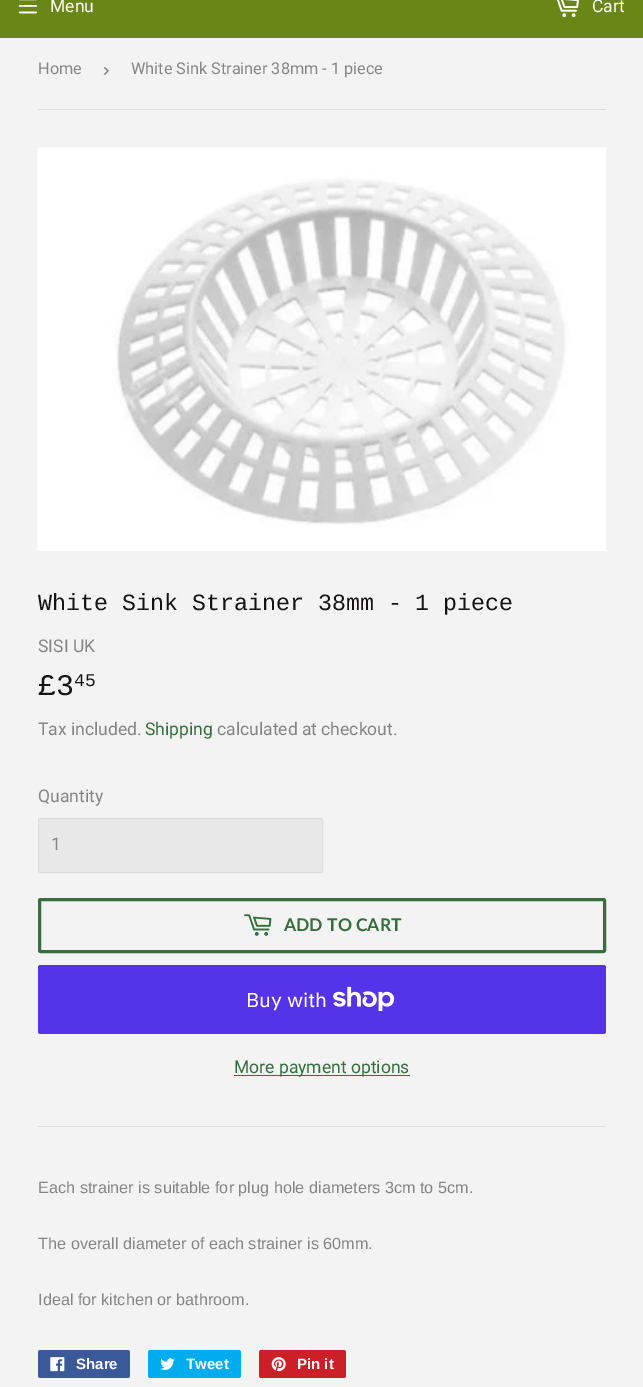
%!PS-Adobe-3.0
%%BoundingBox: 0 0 643 1387
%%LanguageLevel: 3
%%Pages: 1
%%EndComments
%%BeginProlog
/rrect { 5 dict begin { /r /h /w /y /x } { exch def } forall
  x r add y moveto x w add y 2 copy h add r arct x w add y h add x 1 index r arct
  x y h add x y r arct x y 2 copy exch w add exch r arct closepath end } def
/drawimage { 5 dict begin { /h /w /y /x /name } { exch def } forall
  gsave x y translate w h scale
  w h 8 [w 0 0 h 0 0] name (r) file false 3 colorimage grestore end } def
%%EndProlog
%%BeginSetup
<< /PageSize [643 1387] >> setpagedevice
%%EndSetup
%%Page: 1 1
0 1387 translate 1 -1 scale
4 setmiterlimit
0.953 setgray
0 0 643 1387 rectfill
0.416 0.525 0.086 setrgbcolor
0 0 643 38 rectfill
(images/1.raw) 18 0 20 14 drawimage
(images/2.raw) 557 0 22 18 drawimage
0.871 setgray
38 109 568 1 rectfill
(images/3.raw) 37 147 569 404 drawimage
0.91 setgray
38.5 818.5 284 54 2 rrect gsave fill grestore
0.871 setgray
stroke
0.208 0.435 0.239 setrgbcolor
3 setlinewidth
39.5 899.5 565 52 1 rrect stroke
(images/4.raw) 244 914 28 22 drawimage
0.329 0.2 0.922 setrgbcolor
38 965 568 69 2.5 rrect fill
(images/5.raw) 333 986 62 25 drawimage
0.208 0.435 0.239 setrgbcolor
234 1075 176 1 rectfill
0.871 setgray
38 1126 568 1 rectfill
0.231 0.349 0.596 setrgbcolor
38 1350 92 28 2.5 rrect fill
(images/6.raw) 50 1357 15 15 drawimage
0 0.675 0.929 setrgbcolor
148 1350 93 28 2.5 rrect fill
(images/7.raw) 160 1358 15 12 drawimage
0.796 0.125 0.153 setrgbcolor
259 1350 87 28 2.5 rrect fill
(images/8.raw) 271 1357 15 15 drawimage
/Roboto-Regular [17.5 0 0 -17.5 0 0] selectfont
1 setgray
50 12 moveto (Menu) show
592 12 moveto (Cart) show
/Roboto-Regular [16.25 0 0 -16.25 0 0] selectfont
0.522 setgray
38 74 moveto (Home) show
/LiberationSans-Regular [19 0 0 -19 0 0] selectfont
0.463 setgray
103 76 moveto (›) show
/Roboto-Regular [16.25 0 0 -16.25 0 0] selectfont
0.522 setgray
131 74 moveto (White Sink Strainer 38mm - 1 piece) show
/LiberationMono-Regular [23.3 0 0 -23.3 0 0] selectfont
0.09 0.078 0.078 setrgbcolor
38 610 moveto (White Sink Strainer 38mm - 1 piece) show
/Roboto-Regular [17.5 0 0 -17.5 0 0] selectfont
0.522 setgray
38 652 moveto (SISI UK) show
/LiberationMono-Regular [30 0 0 -30 0 0] selectfont
0.09 0.078 0.078 setrgbcolor
38 695 moveto (£3) show
/LiberationMono-Regular [18 0 0 -18 0 0] selectfont
74 686 moveto (45) show
/Roboto-Regular [17.5 0 0 -17.5 0 0] selectfont
0.522 setgray
38 735 moveto (Tax included.) show
0.208 0.435 0.239 setrgbcolor
145 735 moveto (Shipping) show
0.522 setgray
217 735 moveto (calculated at checkout.) show
38 802 moveto (Quantity) show
51 850 moveto (1) show
/Lato-Bold [17.5 0 0 -17.5 0 0] selectfont
0.208 0.435 0.239 setrgbcolor
284 931 moveto (ADD TO CART) show
/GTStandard-Regular [20 0 0 -20 0 0] selectfont
1 setgray
246 1007 moveto (Buy with) show
/Roboto-Regular [17.5 0 0 -17.5 0 0] selectfont
0.208 0.435 0.239 setrgbcolor
234 1073 moveto (More payment options) show
/LiberationSans-Regular [16.25 0 0 -16.25 0 0] selectfont
0.522 setgray
38 1193 moveto (Each strainer is suitable for plug hole diameters 3cm to 5cm.) show
38 1249 moveto (The overall diameter of each strainer is 60mm.) show
38 1305 moveto (Ideal for kitchen or bathroom.) show
/LiberationSans-Bold [15 0 0 -15 0 0] selectfont
1 setgray
76 1369 moveto (Share) show
186 1369 moveto (Tweet) show
297 1369 moveto (Pin it) show
showpage
%%EOF
